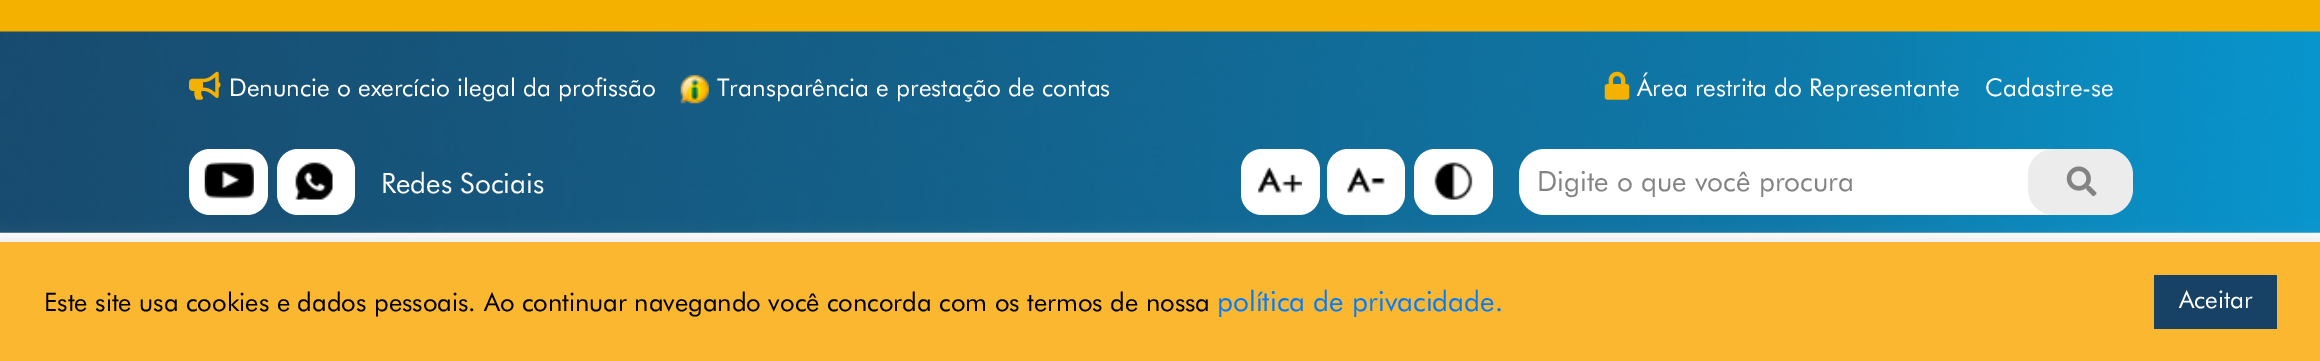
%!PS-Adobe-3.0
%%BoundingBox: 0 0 2320 361
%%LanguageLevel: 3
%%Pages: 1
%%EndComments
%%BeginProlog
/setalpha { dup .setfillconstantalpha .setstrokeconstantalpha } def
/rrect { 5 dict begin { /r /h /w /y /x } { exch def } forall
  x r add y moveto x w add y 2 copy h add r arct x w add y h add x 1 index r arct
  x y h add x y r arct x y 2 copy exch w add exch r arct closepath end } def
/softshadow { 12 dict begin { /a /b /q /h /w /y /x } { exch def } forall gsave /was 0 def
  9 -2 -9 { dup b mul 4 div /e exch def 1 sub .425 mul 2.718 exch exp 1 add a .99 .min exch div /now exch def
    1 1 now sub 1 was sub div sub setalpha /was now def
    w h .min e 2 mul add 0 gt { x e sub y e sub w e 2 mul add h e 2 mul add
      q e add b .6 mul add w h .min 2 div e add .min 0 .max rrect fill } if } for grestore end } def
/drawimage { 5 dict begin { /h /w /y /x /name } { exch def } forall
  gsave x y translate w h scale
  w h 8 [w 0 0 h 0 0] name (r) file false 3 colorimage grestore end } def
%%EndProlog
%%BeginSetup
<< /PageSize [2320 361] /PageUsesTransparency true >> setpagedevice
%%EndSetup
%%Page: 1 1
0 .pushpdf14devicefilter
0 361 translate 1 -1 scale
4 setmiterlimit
1 setgray
0 0 2320 361 rectfill
0.961 0.694 0 setrgbcolor
0 0 2320 32 rectfill
(images/1.raw) 0 31 2320 202 drawimage
(images/2.raw) 189 71 32 29 drawimage
(images/3.raw) 680 75 29 29 drawimage
(images/4.raw) 1604 71 26 29 drawimage
1 setgray
189 149 79 66 21 rrect fill
(images/5.raw) 204 162 50 37 drawimage
277 149 78 66 21 rrect fill
(images/6.raw) 295 162 38 38 drawimage
1241 149 79 66 21 rrect fill
(images/7.raw) 1258 167 44 26 drawimage
1327 149 78 66 21 rrect fill
(images/8.raw) 1347 167 38 26 drawimage
1414 149 79 66 21 rrect fill
(images/9.raw) 1434 162 39 38 drawimage
1519 149 613 66 26 rrect fill
0.925 setgray
2028 149 105 66 26 rrect fill
(images/10.raw) 2066 166 31 31 drawimage
0.675 0.671 0.671 setrgbcolor
0 240 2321 121 0 9 0.3 softshadow
0.98 0.718 0.184 setrgbcolor
0 242 2320 119 rectfill
0.09 0.259 0.396 setrgbcolor
2154 275 123 54 rectfill
/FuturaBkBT-Regular [24.5 0 0 -24.5 0 0] selectfont
1 setgray
229 96 moveto (Denuncie o exercício ilegal da profissão) show
717 96 moveto (Transparência e prestação de contas) show
1637 96 moveto (Área restrita do Representante) show
1985 96 moveto (Cadastre-se) show
/FuturaBkBT-Regular [28 0 0 -28 0 0] selectfont
381 193 moveto (Redes Sociais) show
0.514 setgray
1537 191 moveto (Digite o que você procura) show
/FuturaBkBT-Regular [25.65 0 0 -25.65 0 0] selectfont
0 setgray
44 311 moveto (Este site usa cookies e dados pessoais. Ao continuar navegando você concorda com os termos de nossa) show
/FuturaBkBT-Regular [28 0 0 -28 0 0] selectfont
0 0.482 1 setrgbcolor
1217 311 moveto (política de privacidade.) show
/FuturaBkBT-Regular [24.5 0 0 -24.5 0 0] selectfont
1 setgray
2179 308 moveto (Aceitar) show
.poppdf14devicefilter showpage
%%EOF
